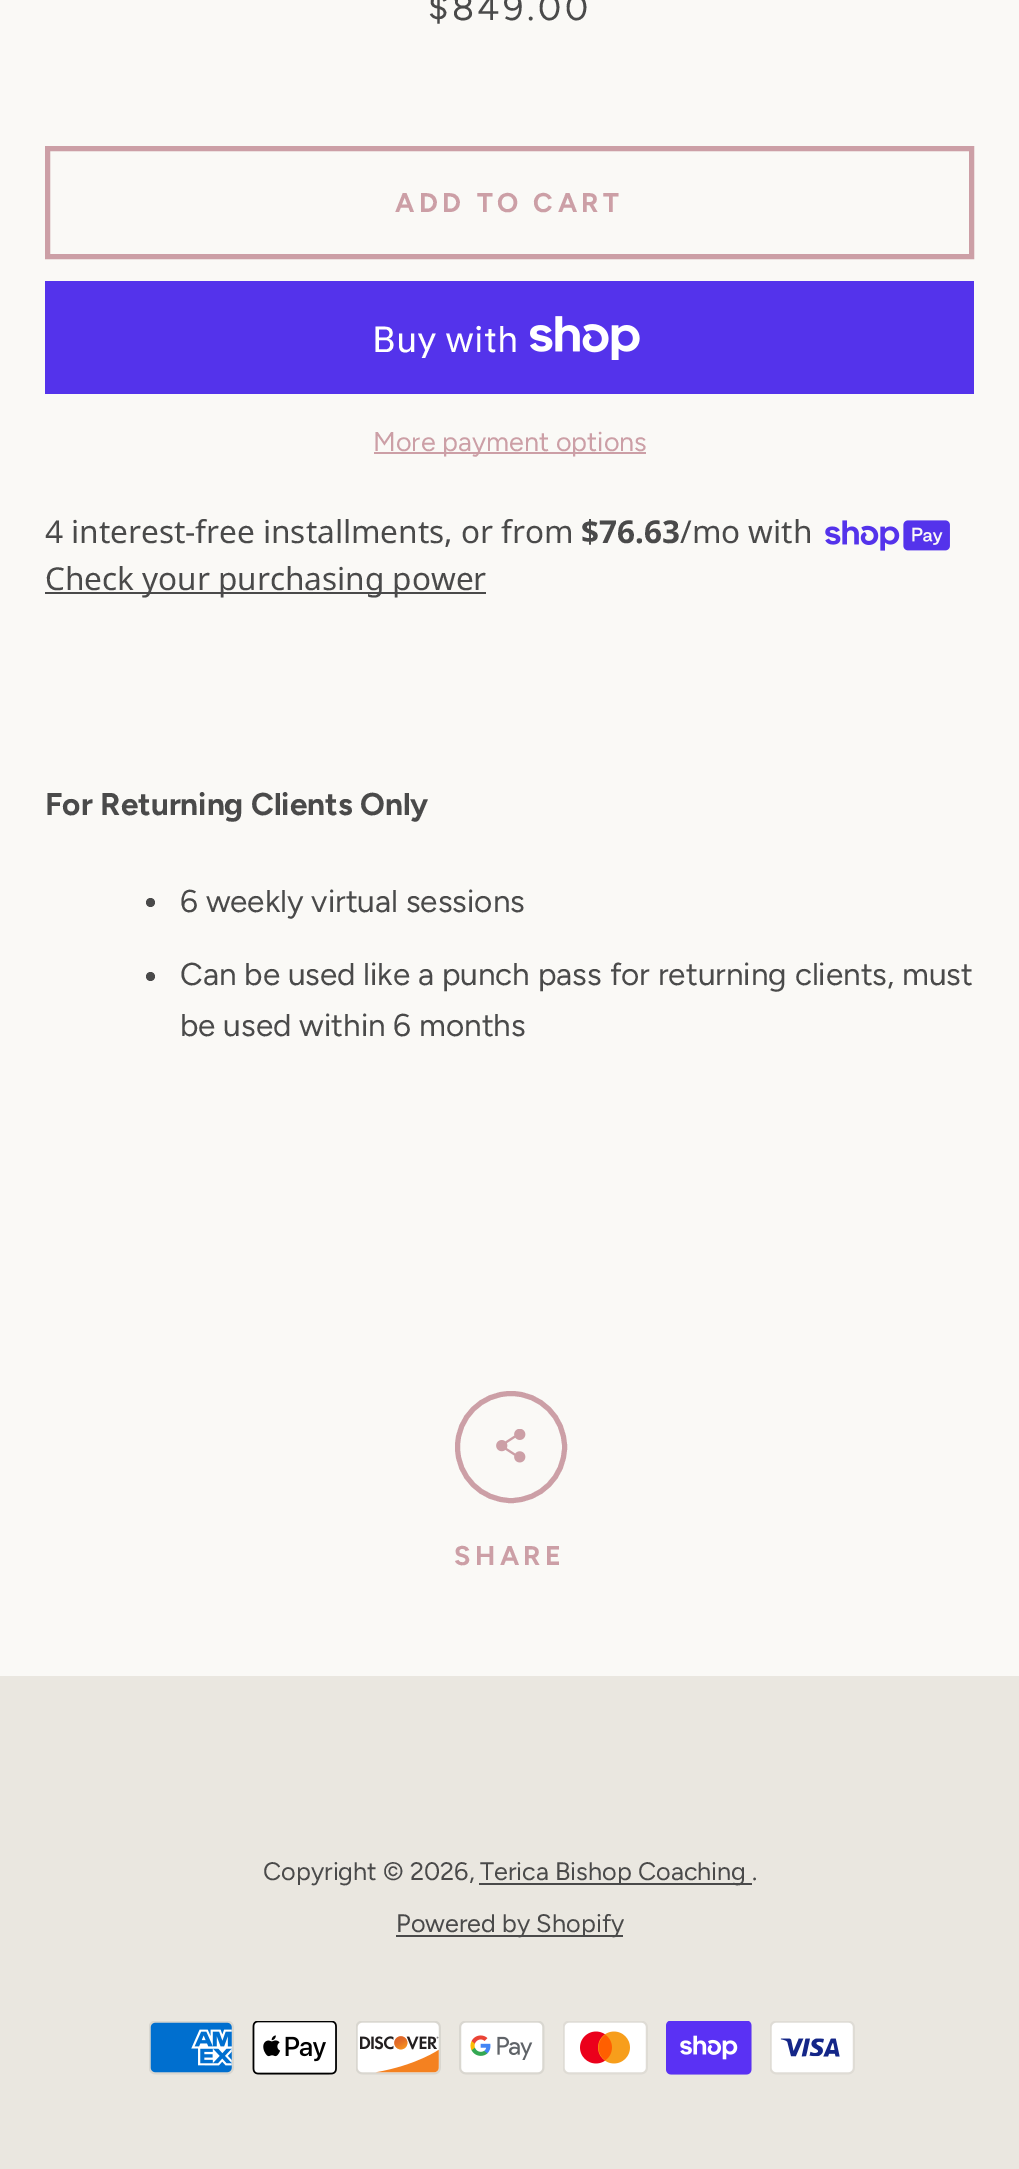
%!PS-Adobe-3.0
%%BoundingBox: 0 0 1019 2169
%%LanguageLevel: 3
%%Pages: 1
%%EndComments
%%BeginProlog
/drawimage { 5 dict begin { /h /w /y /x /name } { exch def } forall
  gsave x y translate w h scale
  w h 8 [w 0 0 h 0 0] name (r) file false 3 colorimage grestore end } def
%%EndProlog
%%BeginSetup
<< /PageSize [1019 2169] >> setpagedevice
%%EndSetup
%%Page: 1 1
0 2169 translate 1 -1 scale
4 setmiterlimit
0.918 0.906 0.878 setrgbcolor
0 0 1019 2169 rectfill
0.98 0.976 0.965 setrgbcolor
0 0 1019 1676 rectfill
0.8 0.624 0.651 setrgbcolor
5 setlinewidth
47.5 148.5 924 108 rectstroke
0.329 0.2 0.922 setrgbcolor
45 281 929 113 rectfill
(images/1.raw) 530 316 110 44 drawimage
0.8 0.624 0.651 setrgbcolor
374 452 272 2 rectfill
(images/2.raw) 825 520 125 31 drawimage
0.29 setgray
45 592 441 2 rectfill
newpath 150.5 902.5 4.5 0 360 arc closepath fill
newpath 150.5 976.5 4.5 0 360 arc closepath fill
0.8 0.624 0.651 setrgbcolor
newpath 511 1447 53.5 0 360 arc closepath stroke
(images/3.raw) 496 1429 30 34 drawimage
0.29 setgray
479 1883 273 2 rectfill
396 1935 227 2 rectfill
(images/4.raw) 149 2021 85 54 drawimage
(images/5.raw) 252 2021 85 54 drawimage
(images/6.raw) 356 2021 85 54 drawimage
(images/7.raw) 459 2021 86 54 drawimage
(images/8.raw) 563 2021 85 54 drawimage
(images/9.raw) 666 2021 86 54 drawimage
(images/10.raw) 770 2021 85 54 drawimage
/Figtree-Regular [36 0 0 -36 0 0] selectfont
428 20 moveto 3.5 0 ($849.00) ashow
/Figtree-Bold [27 0 0 -27 0 0] selectfont
0.8 0.624 0.651 setrgbcolor
395 212 moveto 4.5 0 (ADD TO CART) ashow
/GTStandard-Regular [36 0 0 -36 0 0] selectfont
1 setgray
372 352 moveto (Buy with) show
/Figtree-Regular [27 0 0 -27 0 0] selectfont
0.8 0.624 0.651 setrgbcolor
373 451 moveto (More payment options) show
/NotoSans-Regular [31.5 0 0 -31.5 0 0] selectfont
0.29 setgray
45 543 moveto (4 interest-free installments, or from) show
/NotoSans-Bold [31.5 0 0 -31.5 0 0] selectfont
581 543 moveto ($76.63) show
/NotoSans-Regular [31.5 0 0 -31.5 0 0] selectfont
680 543 moveto (/mo with) show
45 590 moveto (Check your purchasing power) show
/Figtree-Bold [31.5 0 0 -31.5 0 0] selectfont
45 815 moveto (For Returning Clients Only) show
/Figtree-Regular [31.5 0 0 -31.5 0 0] selectfont
180 912 moveto (6 weekly virtual sessions) show
180 985 moveto (Can be used like a punch pass for returning clients, must) show
180 1036 moveto (be used within 6 months) show
/Figtree-Bold [27 0 0 -27 0 0] selectfont
0.8 0.624 0.651 setrgbcolor
454 1565 moveto 4.5 0 (SHARE) ashow
/Figtree-Regular [25.25 0 0 -25.25 0 0] selectfont
0.29 setgray
263 1880 moveto (Copyright © 2026,) show
480 1880 moveto (Terica Bishop Coaching .) show
396 1932 moveto (Powered by Shopify) show
showpage
%%EOF
